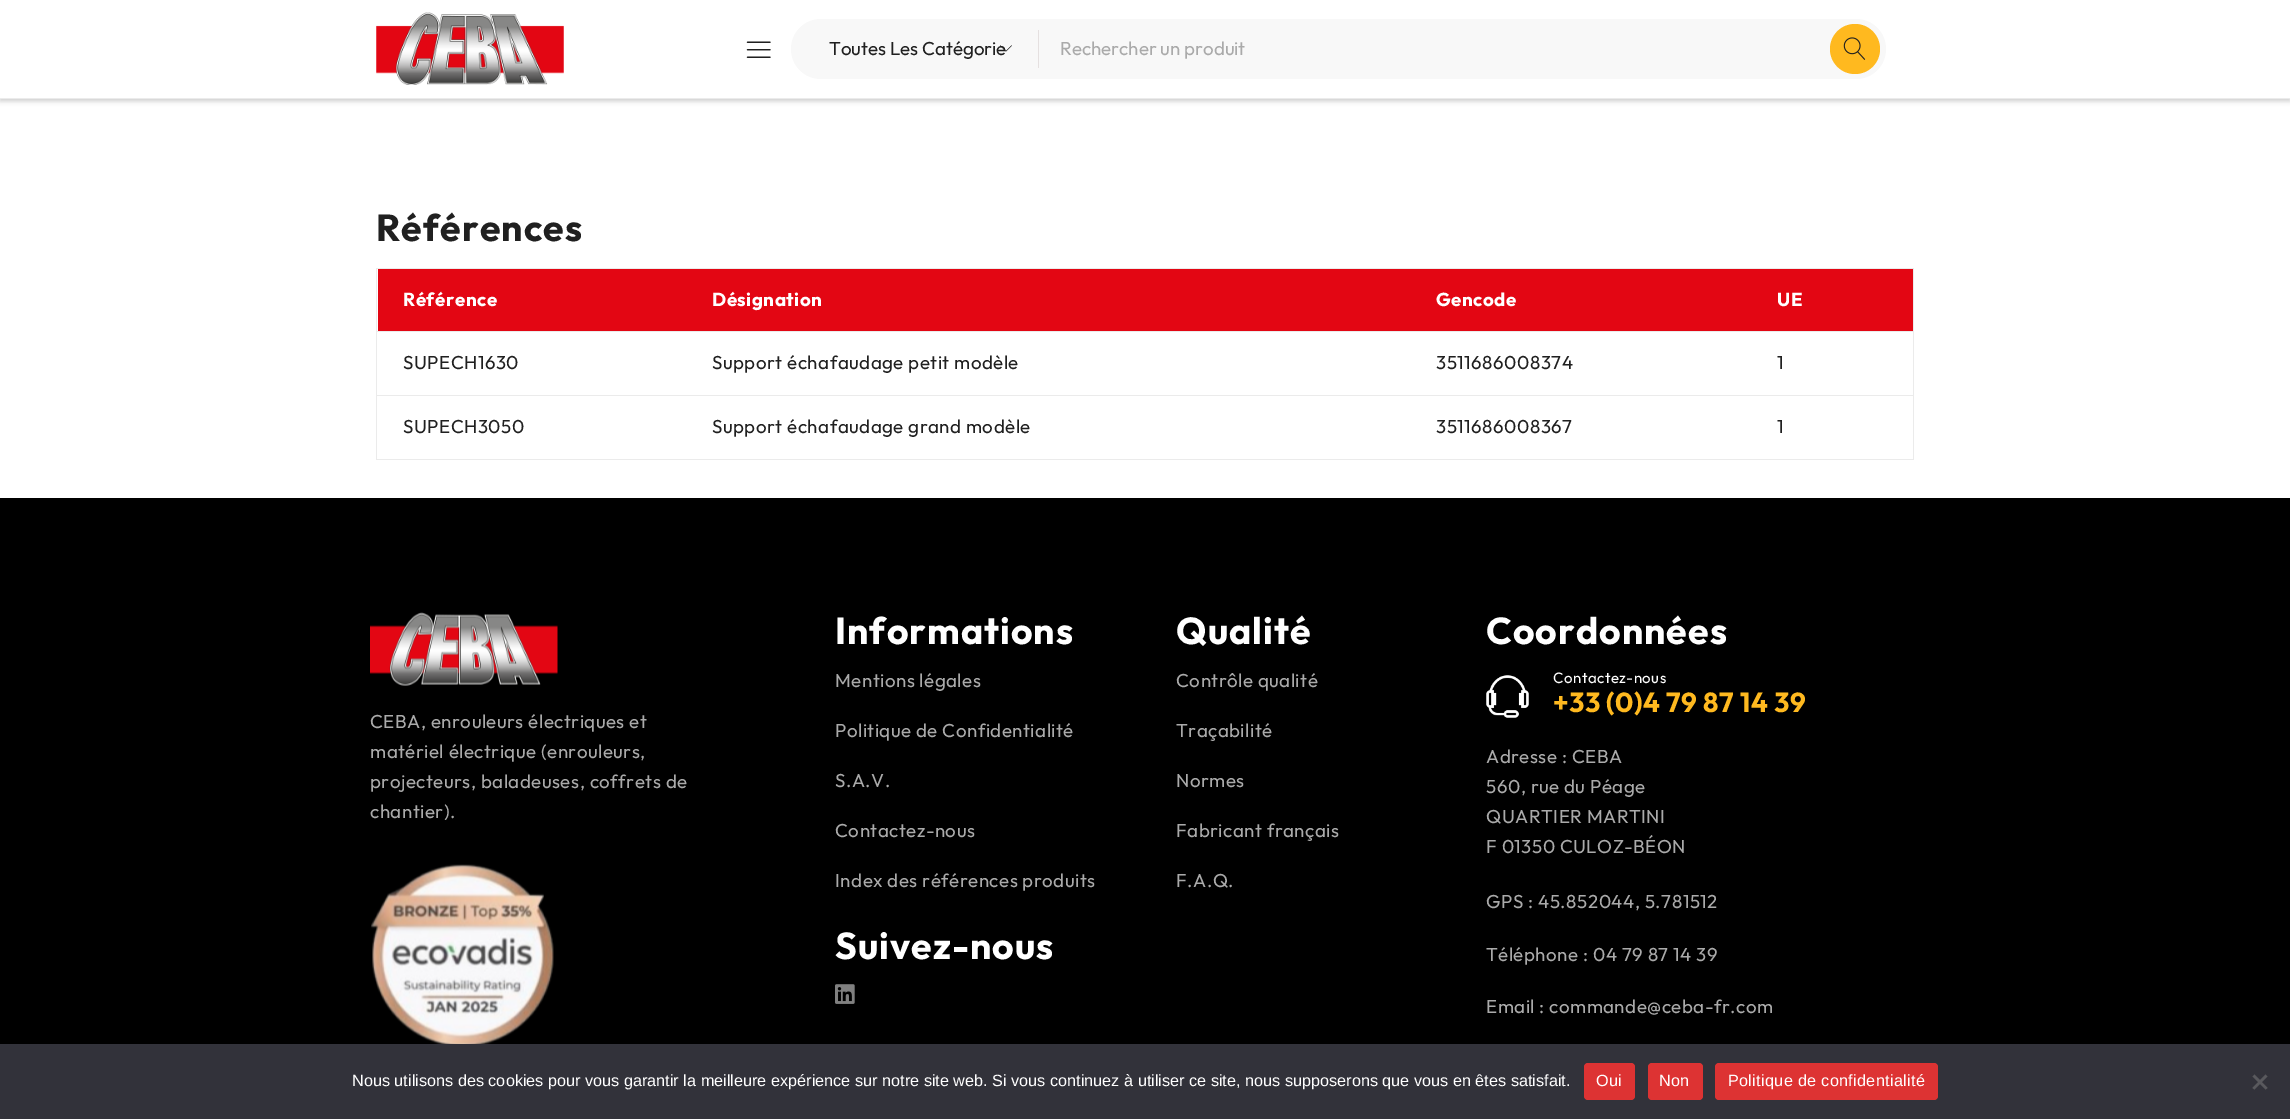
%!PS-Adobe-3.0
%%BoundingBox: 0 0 2290 1119
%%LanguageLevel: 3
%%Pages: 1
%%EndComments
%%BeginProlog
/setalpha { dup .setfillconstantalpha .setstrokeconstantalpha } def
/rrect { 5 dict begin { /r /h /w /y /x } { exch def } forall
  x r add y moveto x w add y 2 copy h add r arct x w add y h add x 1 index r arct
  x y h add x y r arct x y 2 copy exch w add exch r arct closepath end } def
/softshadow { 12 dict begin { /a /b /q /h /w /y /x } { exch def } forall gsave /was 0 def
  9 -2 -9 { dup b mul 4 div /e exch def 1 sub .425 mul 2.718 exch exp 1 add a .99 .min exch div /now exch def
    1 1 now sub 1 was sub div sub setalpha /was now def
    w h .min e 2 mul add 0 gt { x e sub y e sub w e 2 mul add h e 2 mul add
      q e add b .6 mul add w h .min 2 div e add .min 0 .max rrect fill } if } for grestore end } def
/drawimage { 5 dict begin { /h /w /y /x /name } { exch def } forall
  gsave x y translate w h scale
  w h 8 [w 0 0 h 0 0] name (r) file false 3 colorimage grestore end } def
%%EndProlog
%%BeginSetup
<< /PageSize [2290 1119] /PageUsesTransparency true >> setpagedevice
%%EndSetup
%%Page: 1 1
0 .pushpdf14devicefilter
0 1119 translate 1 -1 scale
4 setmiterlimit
1 setgray
0 0 2290 1119 rectfill
0 setgray
0 3 2290 98 0 2.5 0.2 softshadow
1 setgray
0 0 2290 98 rectfill
0.922 setgray
0 98 2290 1 rectfill
(images/1.raw) 376 12 188 73 drawimage
(images/2.raw) 746 41 25 17 drawimage
0.973 setgray
791 19 1095 60 30 rrect fill
(images/3.raw) 1000 45 12 7 drawimage
0.898 0.878 0.878 setrgbcolor
1038 30 1 38 rectfill
1 0.725 0.122 setrgbcolor
newpath 1855 49 25 0 360 arc closepath fill
(images/4.raw) 1843 37 23 23 drawimage
0.922 setgray
376 268 1538 1 rectfill
1913 268 1 192 rectfill
376 459 1538 1 rectfill
376 268 1 192 rectfill
0.89 0.024 0.075 setrgbcolor
378 269 1535 62 rectfill
0.922 setgray
376 331 1538 1 rectfill
376 395 1538 1 rectfill
0 setgray
0 498 2290 546 rectfill
(images/5.raw) 370 612 188 74 drawimage
(images/6.raw) 371 864 183 180 drawimage
(images/7.raw) 835 984 20 20 drawimage
(images/8.raw) 1486 675 43 43 drawimage
0.196 0.196 0.227 setrgbcolor
0 1044 2290 75 rectfill
0.867 0.2 0.2 setrgbcolor
1584 1063 51 37 4 rrect fill
1648 1063 55 37 4 rrect fill
1715 1063 223 37 4 rrect fill
0.349 0.349 0.365 setrgbcolor
newpath 2265.5 1074.5 moveto 2267.5 1076.5 lineto 2254.5 1089.5 lineto 2252.5 1088 lineto closepath fill
newpath 2252.5 1076.5 moveto 2254.5 1074.5 lineto 2267.5 1088 lineto 2265.5 1089.5 lineto closepath fill
/Outfit-Regular [18.75 0 0 -18.75 0 0] selectfont
0.125 setgray
829 55 moveto (Toutes Les Catégorie) show
0.667 setgray
1060 55 moveto (Rechercher un produit) show
/Outfit-Bold [37.5 0 0 -37.5 0 0] selectfont
0.125 setgray
376 241 moveto 1 0 (Références) ashow
/Outfit-Bold [18.75 0 0 -18.75 0 0] selectfont
1 setgray
403 306 moveto 0.5 0 (Référence) ashow
712 306 moveto 0.5 0 (Désignation) ashow
1436 306 moveto 0.5 0 (Gencode) ashow
1777 306 moveto 0.5 0 (UE) ashow
/Outfit-Regular [18.75 0 0 -18.75 0 0] selectfont
0.125 setgray
403 369 moveto 0.5 0 (SUPECH1630) ashow
712 369 moveto 0.5 0 (Support échafaudage petit modèle) ashow
1436 369 moveto 0.5 0 (3511686008374) ashow
1777 369 moveto 0.5 0 (1) ashow
403 433 moveto 0.5 0 (SUPECH3050) ashow
712 433 moveto 0.5 0 (Support échafaudage grand modèle) ashow
1436 433 moveto 0.5 0 (3511686008367) ashow
1777 433 moveto 0.5 0 (1) ashow
0.667 setgray
370 728 moveto 0.5 0 (CEBA, enrouleurs électriques et) ashow
370 758 moveto 0.5 0 (matériel électrique \(enrouleurs,) ashow
370 788 moveto 0.5 0 (projecteurs, baladeuses, coffrets de) ashow
370 818 moveto 0.5 0 (chantier\).) ashow
/Outfit-Bold [37.5 0 0 -37.5 0 0] selectfont
1 setgray
835 644 moveto 1 0 (Informations) ashow
/Outfit-Regular [18.75 0 0 -18.75 0 0] selectfont
0.667 setgray
835 687 moveto 0.5 0 (Mentions légales) ashow
835 737 moveto 0.5 0 (Politique de Confidentialité) ashow
835 787 moveto 0.5 0 (S.A.V.) ashow
835 837 moveto 0.5 0 (Contactez-nous) ashow
835 887 moveto 0.5 0 (Index des références produits) ashow
/Outfit-Bold [37.5 0 0 -37.5 0 0] selectfont
1 setgray
835 959 moveto 1 0 (Suivez-nous) ashow
1176 644 moveto 1 0 (Qualité) ashow
/Outfit-Regular [18.75 0 0 -18.75 0 0] selectfont
0.667 setgray
1176 687 moveto 0.5 0 (Contrôle qualité) ashow
1176 737 moveto 0.5 0 (Traçabilité) ashow
1176 787 moveto 0.5 0 (Normes) ashow
1176 837 moveto 0.5 0 (Fabricant français) ashow
1176 887 moveto 0.5 0 (F.A.Q.) ashow
/Outfit-Bold [37.5 0 0 -37.5 0 0] selectfont
1 setgray
1486 644 moveto 1 0 (Coordonnées) ashow
/Outfit-Regular [15 0 0 -15 0 0] selectfont
1553 683 moveto 0.5 0 (Contactez-nous) ashow
/Outfit-Bold [27.5 0 0 -27.5 0 0] selectfont
1 0.725 0.122 setrgbcolor
1553 712 moveto 0.5 0 (+33 \(0\)4 79 87 14 39) ashow
/Outfit-Regular [18.75 0 0 -18.75 0 0] selectfont
0.667 setgray
1486 763 moveto 0.5 0 (Adresse : CEBA) ashow
1486 793 moveto 0.5 0 (560, rue du Péage) ashow
1486 823 moveto 0.5 0 (QUARTIER MARTINI) ashow
1486 853 moveto 0.5 0 (F 01350 CULOZ-BÉON) ashow
1486 908 moveto 0.5 0 (GPS : 45.852044, 5.781512) ashow
1486 961 moveto 0.5 0 (Téléphone : 04 79 87 14 39) ashow
1486 1013 moveto 0.5 0 (Email : commande@ceba-fr.com) ashow
/LiberationSans-Regular [16.25 0 0 -16.25 0 0] selectfont
1 setgray
352 1086 moveto (Nous utilisons des cookies pour vous garantir la meilleure expérience sur notre site web. Si vous continuez à utiliser ce site, nous supposerons que vous en êtes satisfait.) show
1596 1086 moveto 0.3 0 (Oui) ashow
1659 1086 moveto 0.3 0 (Non) ashow
1728 1086 moveto 0.3 0 (Politique de confidentialité) ashow
.poppdf14devicefilter showpage
%%EOF
